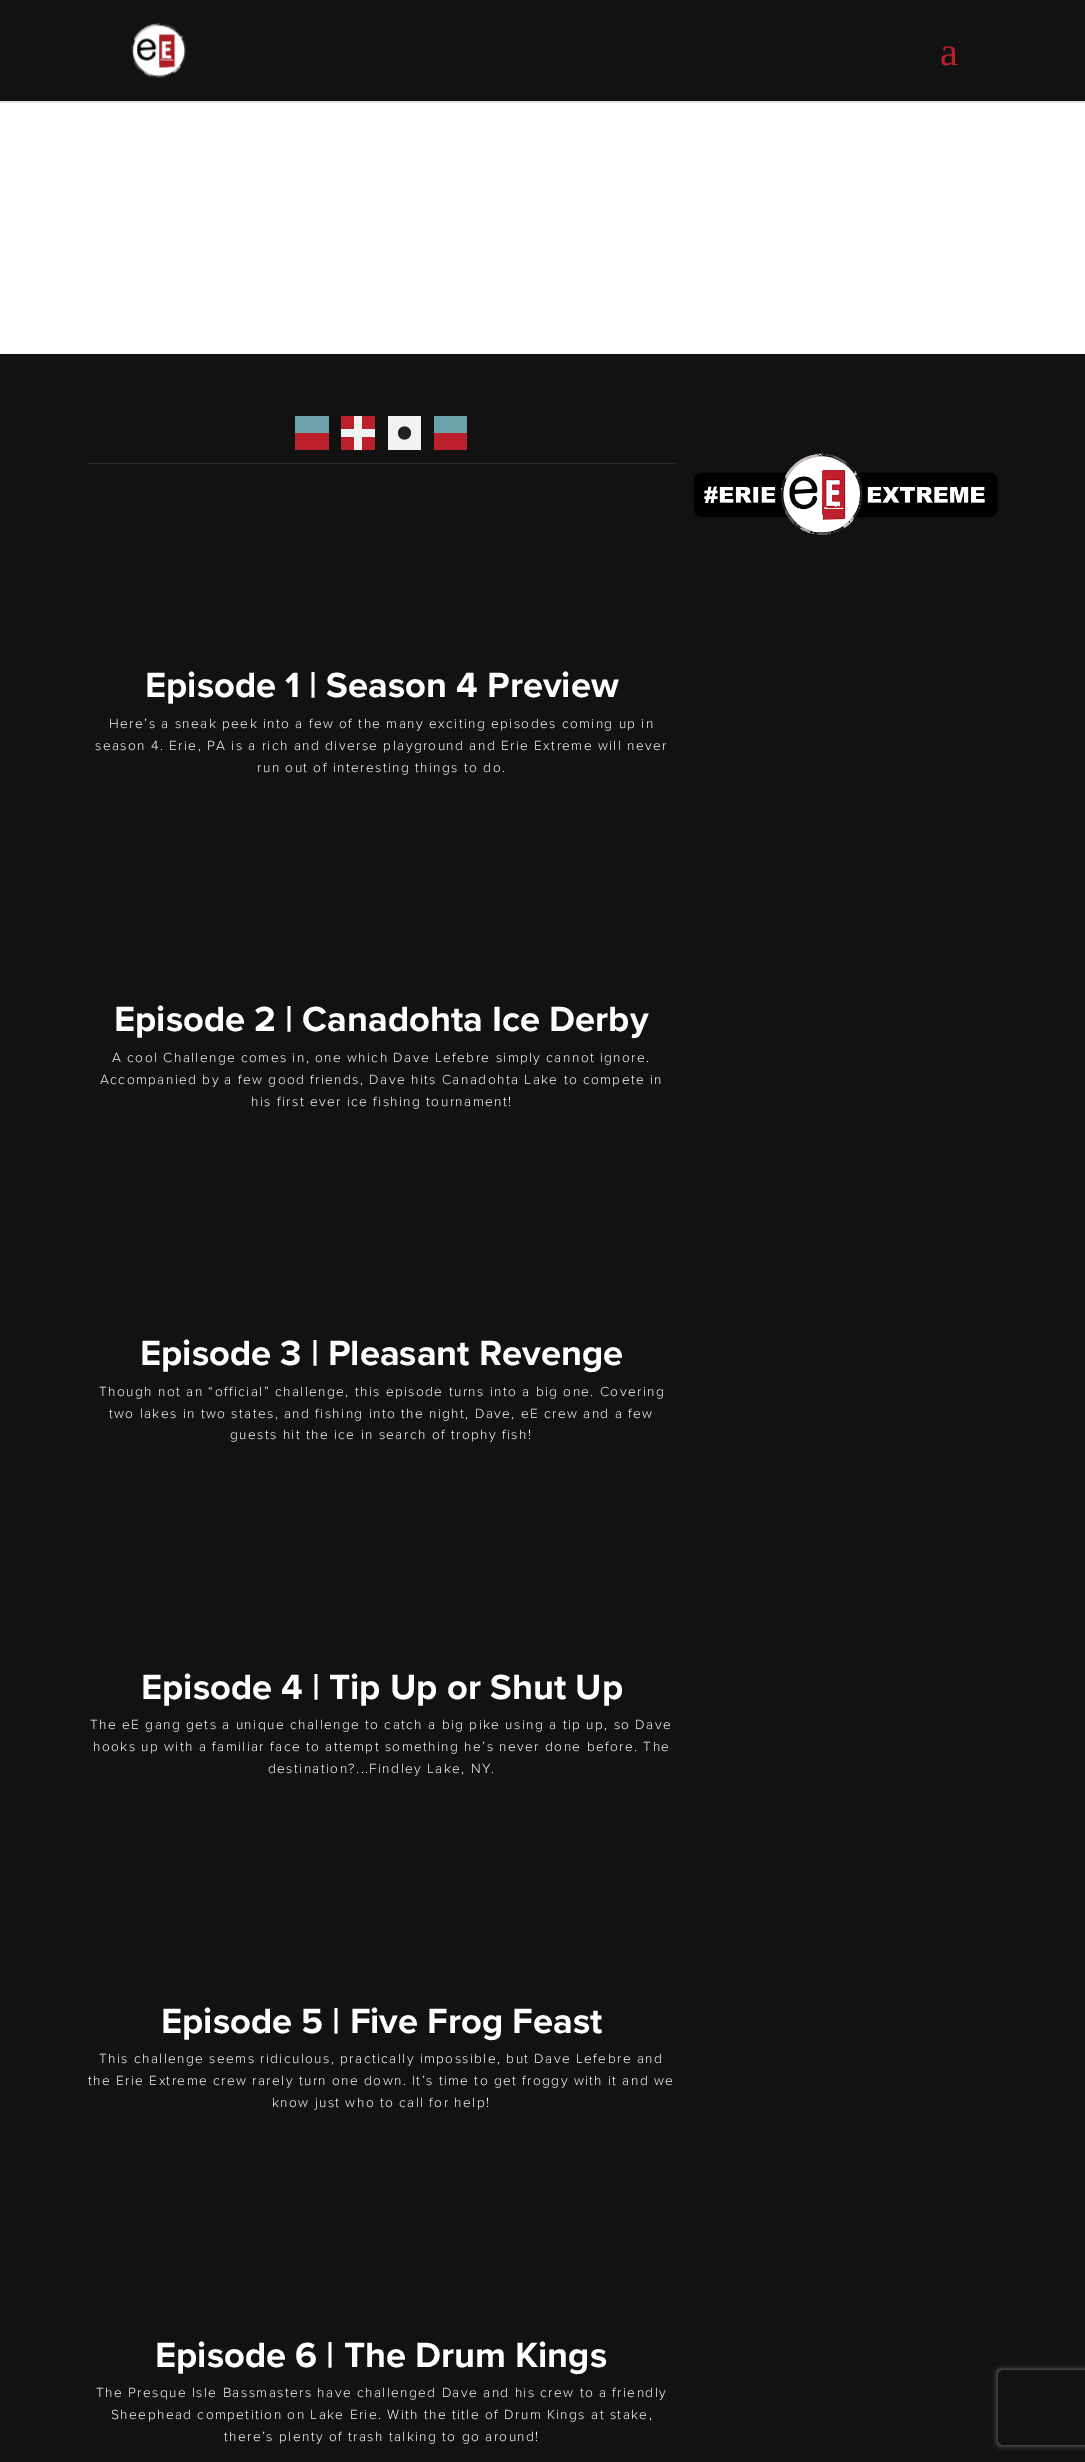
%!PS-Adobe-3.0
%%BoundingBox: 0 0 1085 2462
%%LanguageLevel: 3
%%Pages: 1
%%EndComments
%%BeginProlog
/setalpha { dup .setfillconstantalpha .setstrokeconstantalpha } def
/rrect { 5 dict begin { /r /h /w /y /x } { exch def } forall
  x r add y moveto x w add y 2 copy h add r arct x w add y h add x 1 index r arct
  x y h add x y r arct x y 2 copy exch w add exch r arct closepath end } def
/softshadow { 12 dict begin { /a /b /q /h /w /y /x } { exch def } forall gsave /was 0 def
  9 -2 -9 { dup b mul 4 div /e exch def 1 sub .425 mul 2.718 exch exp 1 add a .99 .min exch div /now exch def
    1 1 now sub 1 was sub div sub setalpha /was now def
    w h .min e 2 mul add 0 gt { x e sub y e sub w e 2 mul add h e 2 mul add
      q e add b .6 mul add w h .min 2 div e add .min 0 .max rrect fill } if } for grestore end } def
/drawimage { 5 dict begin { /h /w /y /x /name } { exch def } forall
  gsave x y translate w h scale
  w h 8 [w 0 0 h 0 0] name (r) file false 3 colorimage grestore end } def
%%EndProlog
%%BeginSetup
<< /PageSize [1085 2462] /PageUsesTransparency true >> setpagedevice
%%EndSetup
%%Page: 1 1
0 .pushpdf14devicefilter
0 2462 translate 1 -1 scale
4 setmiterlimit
1 setgray
0 0 1085 2462 rectfill
0.902 setgray
0 101 1085 2 rectfill
0.071 setgray
0 0 1085 101 rectfill
(images/1.raw) 131 23 55 55 drawimage
0 354 1085 2108 rectfill
(images/2.raw) 693 453 305 82 drawimage
0.741 0.125 0.176 setrgbcolor
295 433 34 17 rectfill
0.42 0.631 0.659 setrgbcolor
295 416 34 17 rectfill
0.741 0.125 0.176 setrgbcolor
341 416 34 34 rectfill
0.945 0.949 0.949 setrgbcolor
354 416 8 34 rectfill
341 429 34 8 rectfill
388 416 33 34 rectfill
0.137 0.122 0.125 setrgbcolor
newpath 404.5 433 6.5 0 360 arc closepath fill
0.741 0.125 0.176 setrgbcolor
434 433 33 17 rectfill
0.42 0.631 0.659 setrgbcolor
434 416 33 17 rectfill
0.173 setgray
88 463 587 1 rectfill
gsave
newpath 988 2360 moveto 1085 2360 lineto 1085 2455 lineto 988 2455 lineto closepath 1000.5 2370 moveto 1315.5 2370 lineto 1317 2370 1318 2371 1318 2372.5 curveto 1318 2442.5 lineto 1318 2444 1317 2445 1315.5 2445 curveto 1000.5 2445 lineto 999 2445 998 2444 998 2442.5 curveto 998 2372.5 lineto 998 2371 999 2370 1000.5 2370 curveto closepath eoclip newpath
0.502 setgray
998 2370 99 75 2.5 3 1 softshadow
grestore
/LiberationSerif-Regular [40 0 0 -40 0 0] selectfont
0.741 0.118 0.173 setrgbcolor
940 65 moveto (a) show
/ProximaNova-Bold [36.25 0 0 -36.25 0 0] selectfont
1 setgray
145 697 moveto (Episode 1 | Season 4 Preview) show
/ProximaNova-Light [13.75 0 0 -13.75 0 0] selectfont
109 728 moveto 1.38 0 (Here’s a sneak peek into a few of the many exciting episodes coming up in) ashow
95 750 moveto 1.38 0 (season 4. Erie, PA is a rich and diverse playground and Erie Extreme will never) ashow
257 772 moveto 1.38 0 (run out of interesting things to do.) ashow
/ProximaNova-Bold [36.25 0 0 -36.25 0 0] selectfont
114 1031 moveto (Episode 2 | Canadohta Ice Derby) show
/ProximaNova-Light [13.75 0 0 -13.75 0 0] selectfont
112 1062 moveto 1.38 0 (A cool Challenge comes in, one which Dave Lefebre simply cannot ignore.) ashow
100 1084 moveto 1.38 0 (Accompanied by a few good friends, Dave hits Canadohta Lake to compete in) ashow
251 1106 moveto 1.38 0 (his first ever ice fishing tournament!) ashow
/ProximaNova-Bold [36.25 0 0 -36.25 0 0] selectfont
140 1365 moveto (Episode 3 | Pleasant Revenge) show
/ProximaNova-Light [13.75 0 0 -13.75 0 0] selectfont
99 1396 moveto 1.38 0 (Though not an “official” challenge, this episode turns into a big one. Covering) ashow
109 1418 moveto 1.38 0 (two lakes in two states, and fishing into the night, Dave, eE crew and a few) ashow
230 1439 moveto 1.38 0 (guests hit the ice in search of trophy fish!) ashow
/ProximaNova-Bold [36.25 0 0 -36.25 0 0] selectfont
141 1699 moveto (Episode 4 | Tip Up or Shut Up) show
/ProximaNova-Light [13.75 0 0 -13.75 0 0] selectfont
90 1729 moveto 1.38 0 (The eE gang gets a unique challenge to catch a big pike using a tip up, so Dave) ashow
93 1751 moveto 1.38 0 (hooks up with a familiar face to attempt something he’s never done before. The) ashow
268 1773 moveto 1.38 0 (destination?...Findley Lake, NY.) ashow
/ProximaNova-Bold [36.25 0 0 -36.25 0 0] selectfont
161 2033 moveto (Episode 5 | Five Frog Feast) show
/ProximaNova-Light [13.75 0 0 -13.75 0 0] selectfont
99 2063 moveto 1.38 0 (This challenge seems ridiculous, practically impossible, but Dave Lefebre and) ashow
88 2085 moveto 1.38 0 (the Erie Extreme crew rarely turn one down. It’s time to get froggy with it and we) ashow
272 2107 moveto 1.38 0 (know just who to call for help!) ashow
/ProximaNova-Bold [36.25 0 0 -36.25 0 0] selectfont
155 2367 moveto (Episode 6 | The Drum Kings) show
/ProximaNova-Light [13.75 0 0 -13.75 0 0] selectfont
96 2397 moveto 1.38 0 (The Presque Isle Bassmasters have challenged Dave and his crew to a friendly) ashow
111 2419 moveto 1.38 0 (Sheephead competition on Lake Erie. With the title of Drum Kings at stake,) ashow
224 2441 moveto 1.38 0 (there’s plenty of trash talking to go around!) ashow
.poppdf14devicefilter showpage
%%EOF
